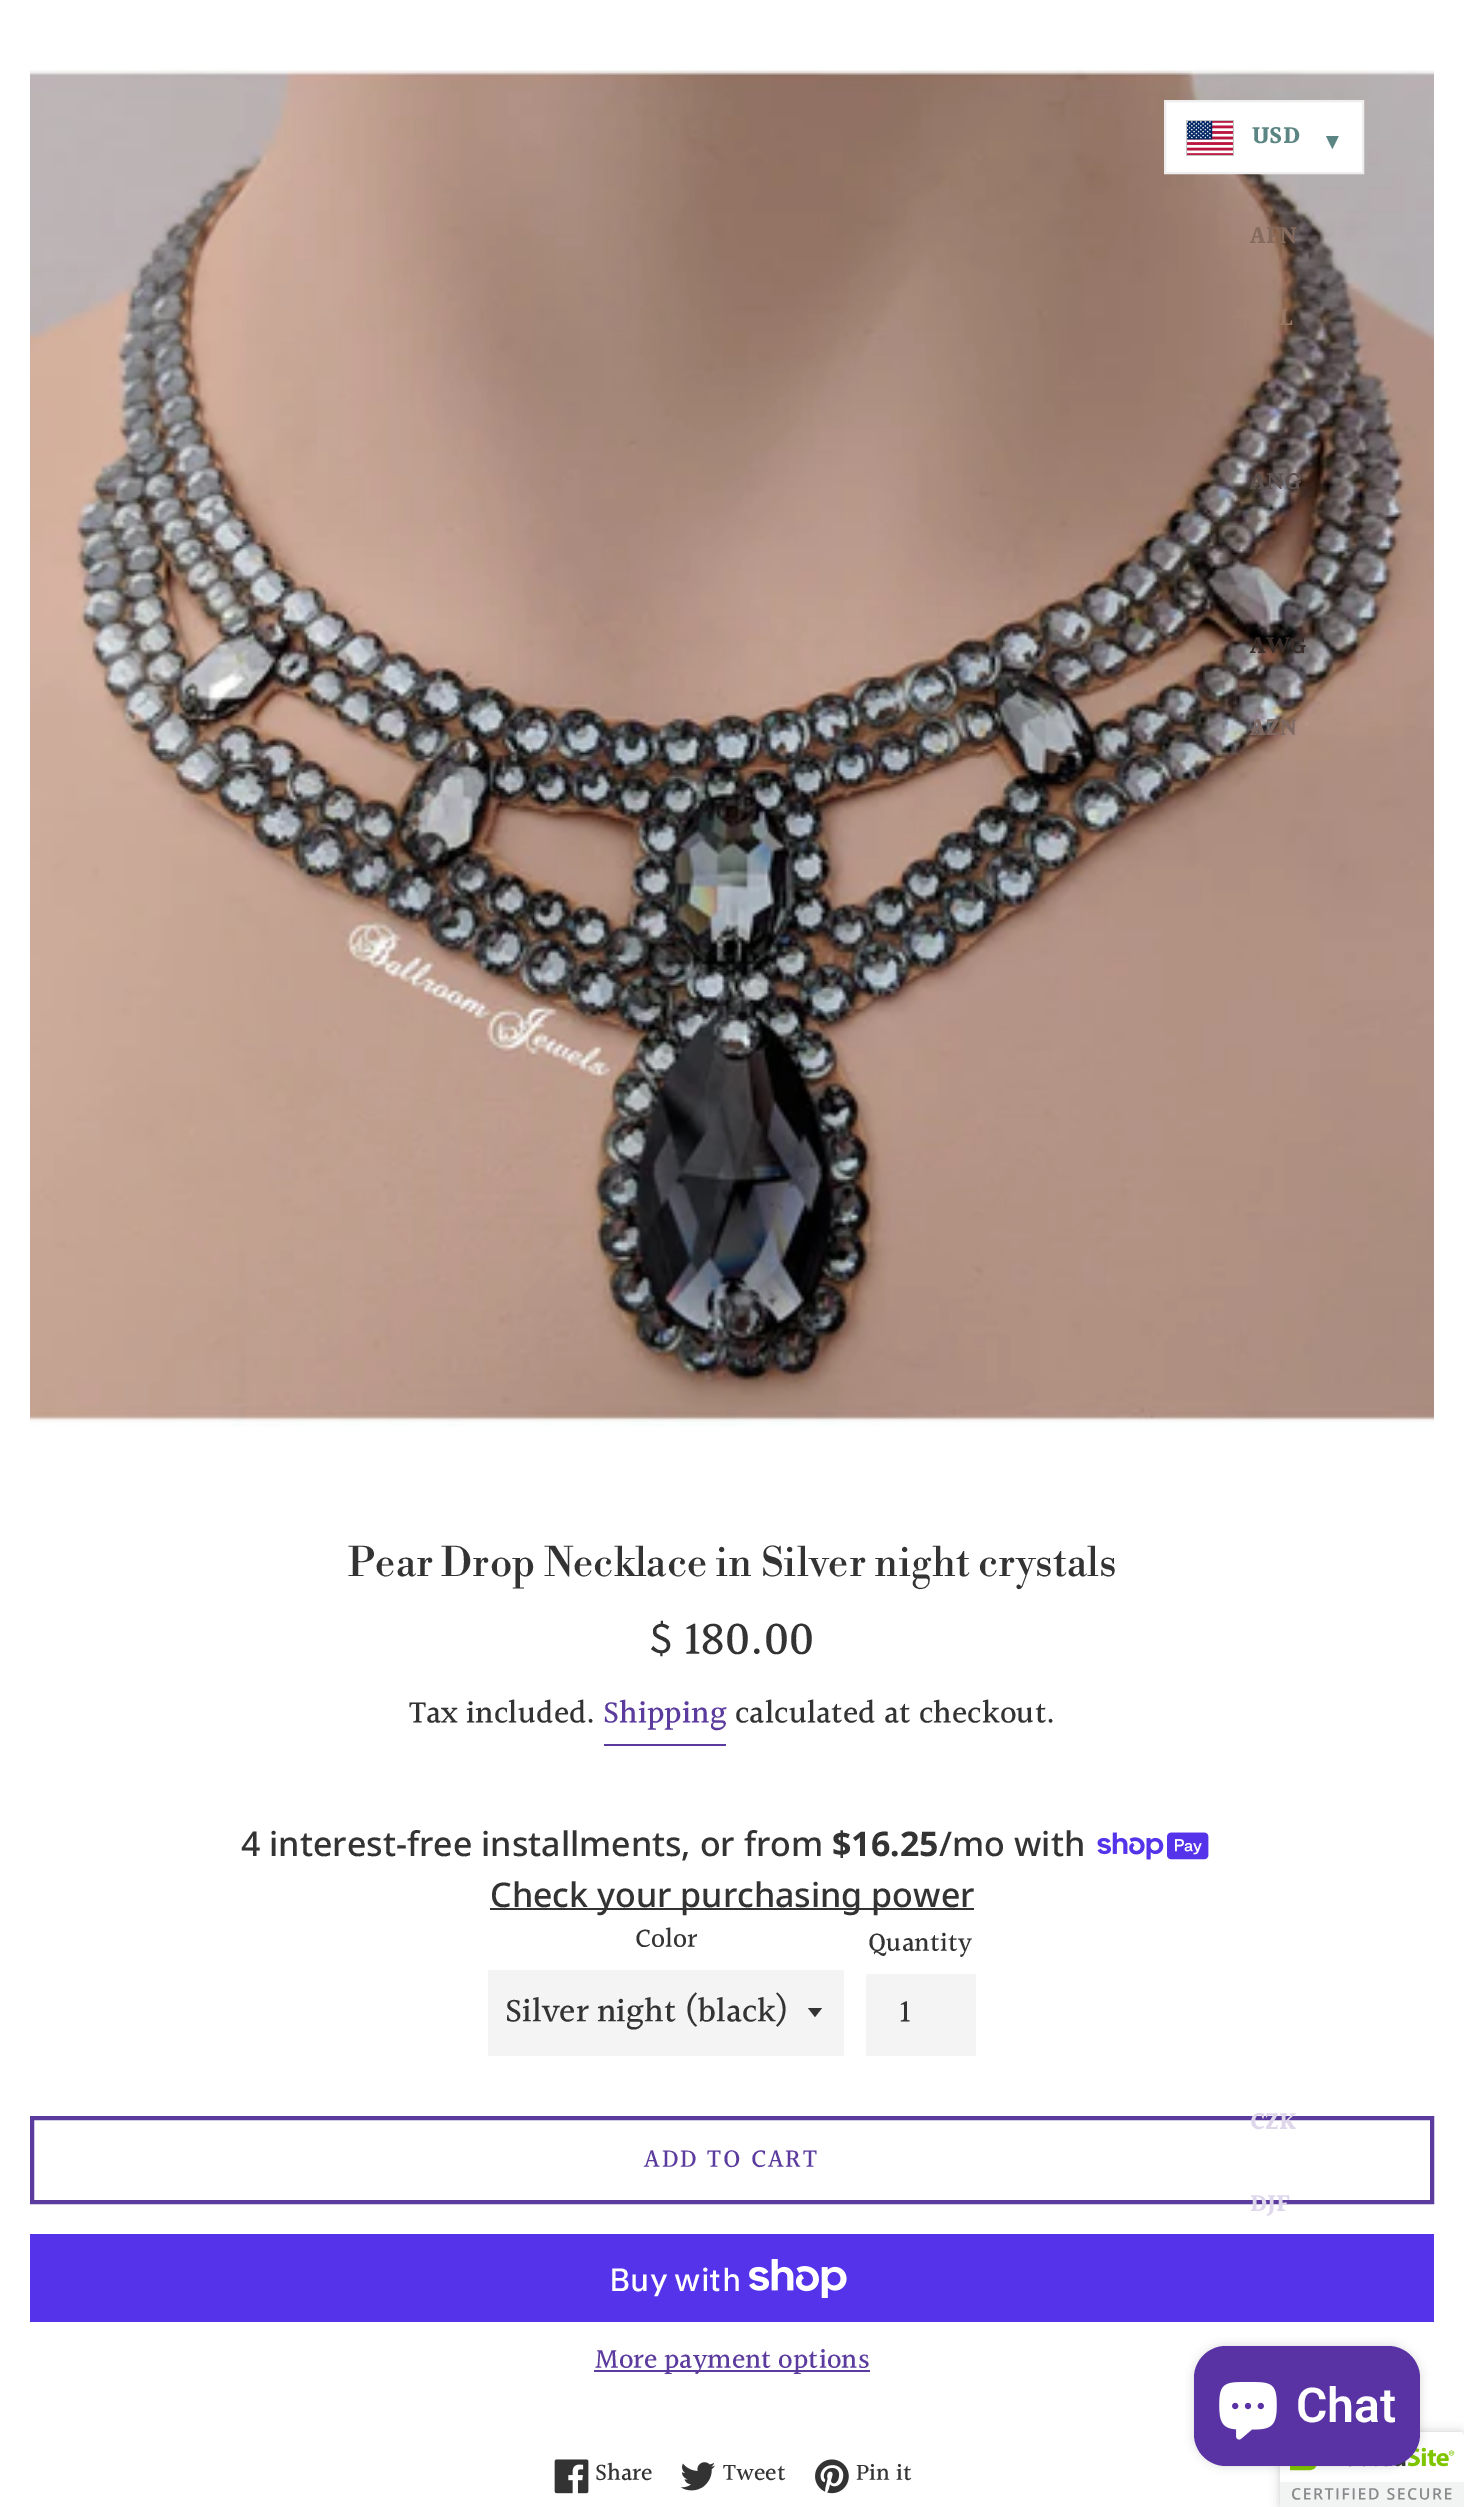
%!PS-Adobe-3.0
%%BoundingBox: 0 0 1464 2507
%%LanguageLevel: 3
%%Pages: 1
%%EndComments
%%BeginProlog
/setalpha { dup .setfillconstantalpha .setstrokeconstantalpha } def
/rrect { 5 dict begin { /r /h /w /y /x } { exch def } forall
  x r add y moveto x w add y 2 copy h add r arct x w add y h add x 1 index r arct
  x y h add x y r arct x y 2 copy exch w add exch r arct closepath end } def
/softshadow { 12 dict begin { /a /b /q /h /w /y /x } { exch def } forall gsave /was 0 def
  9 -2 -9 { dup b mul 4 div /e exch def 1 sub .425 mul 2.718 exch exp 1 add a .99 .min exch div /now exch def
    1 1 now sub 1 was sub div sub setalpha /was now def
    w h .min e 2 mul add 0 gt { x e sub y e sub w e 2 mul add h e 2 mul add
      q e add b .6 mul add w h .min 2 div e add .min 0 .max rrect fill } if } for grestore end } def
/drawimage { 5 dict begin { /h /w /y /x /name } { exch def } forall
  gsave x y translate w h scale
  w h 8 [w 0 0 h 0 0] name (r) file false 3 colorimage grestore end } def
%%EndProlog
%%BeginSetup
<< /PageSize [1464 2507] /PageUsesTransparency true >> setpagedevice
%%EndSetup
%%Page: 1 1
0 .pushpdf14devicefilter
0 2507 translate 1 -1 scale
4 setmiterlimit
1 setgray
0 0 1464 2507 rectfill
(images/1.raw) 30 68 1404 1359 drawimage
0.357 0.231 0.616 setrgbcolor
604 1744 122 2 rectfill
(images/2.raw) 1097 1832 112 28 drawimage
0.2 setgray
490 1908 484 2 rectfill
0.957 setgray
488 1970 356 86 rectfill
0.2 setgray
newpath 808 2008 moveto 815 2017 lineto 822 2008 lineto closepath fill
0.957 setgray
866 1974 110 82 rectfill
0.357 0.231 0.616 setrgbcolor
4 setlinewidth
32 2118 1400 84 rectstroke
0.329 0.2 0.922 setrgbcolor
30 2234 1404 88 rectfill
(images/3.raw) 749 2259 98 39 drawimage
0.357 0.231 0.616 setrgbcolor
594 2370 276 2 rectfill
(images/4.raw) 554 2459 35 35 drawimage
(images/5.raw) 680 2462 35 29 drawimage
(images/6.raw) 815 2459 34 35 drawimage
1 setgray
1166 102 196 70 rectfill
(images/7.raw) 1186 120 48 36 drawimage
0.933 setgray
2 setlinewidth
1165 101 198 72 rectstroke
0 setgray
1280 2432 184 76 4 5 0.2 softshadow
1 setgray
1460 2432 4 4 rectfill
(images/9.raw) 1280 2432 184 75 drawimage
0 setgray
1194 2346 226 120 32 5 0.15 softshadow
0.349 0.2 0.639 setrgbcolor
1194 2346 226 120 32 rrect fill
(images/8.raw) 1219 2382 58 58 drawimage
/LibreBodoni-Regular [40 0 0 -40 0 0] selectfont
0.2 setgray
348 1576 moveto (Pear Drop Necklace in Silver night crystals) show
/Halant-Medium [47.5 0 0 -47.5 0 0] selectfont
649 1656 moveto ($ 180.00) show
/Halant-Medium [32 0 0 -32 0 0] selectfont
409 1724 moveto (Tax included.) show
0.357 0.231 0.616 setrgbcolor
603 1724 moveto (Shipping) show
0.2 setgray
735 1724 moveto (calculated at checkout.) show
/NotoSans-Medium [34 0 0 -34 0 0] selectfont
241 1856 moveto (4 interest-free installments, or from) show
/NotoSans-Bold [34 0 0 -34 0 0] selectfont
832 1856 moveto ($16.25) show
/NotoSans-Medium [34 0 0 -34 0 0] selectfont
939 1856 moveto (/mo with) show
490 1907 moveto (Check your purchasing power) show
/Halant-Medium [27 0 0 -27 0 0] selectfont
635 1948 moveto (Color) show
/Halant-Medium [34 0 0 -34 0 0] selectfont
505 2023 moveto (Silver night \(black\)) show
/Halant-Medium [27 0 0 -27 0 0] selectfont
868 1952 moveto (Quantity) show
/Halant-Medium [32 0 0 -32 0 0] selectfont
900 2023 moveto (1) show
/Halant-Medium [26 0 0 -26 0 0] selectfont
0.357 0.231 0.616 setrgbcolor
644 2168 moveto 2 0 (ADD TO CART) ashow
/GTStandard-Medium [32 0 0 -32 0 0] selectfont
1 setgray
609 2291 moveto (Buy with) show
/Halant-Medium [28 0 0 -28 0 0] selectfont
0.357 0.231 0.616 setrgbcolor
595 2369 moveto (More payment options) show
/Halant-Medium [24 0 0 -24 0 0] selectfont
0.2 setgray
595 2481 moveto (Share) show
723 2481 moveto (Tweet) show
856 2481 moveto (Pin it) show
/Halant-Bold [24 0 0 -24 0 0] selectfont
0.357 0.522 0.514 setrgbcolor
1252 144 moveto (USD) show
/DejaVuSans-Bold [24 0 0 -24 0 0] selectfont
1326 149 moveto (▾) show
/Halant-Bold [24 0 0 -24 0 0] selectfont
0.522 0.416 0.369 setrgbcolor
1250 244 moveto (AFN) show
0.596 0.467 0.396 setrgbcolor
1279 326 moveto (L) show
0.361 0.318 0.306 setrgbcolor
1250 490 moveto (ANG) show
0.224 0.18 0.165 setrgbcolor
1250 654 moveto (AWG) show
0.49 0.412 0.384 setrgbcolor
1250 736 moveto (AZN) show
0.871 0.843 0.922 setrgbcolor
1250 2130 moveto (CZK) show
1250 2212 moveto (DJF) show
/Roboto-SemiBold [48 0 0 -48 0 0] selectfont
1 setgray
1296 2422 moveto (Chat) show
.poppdf14devicefilter showpage
%%EOF
